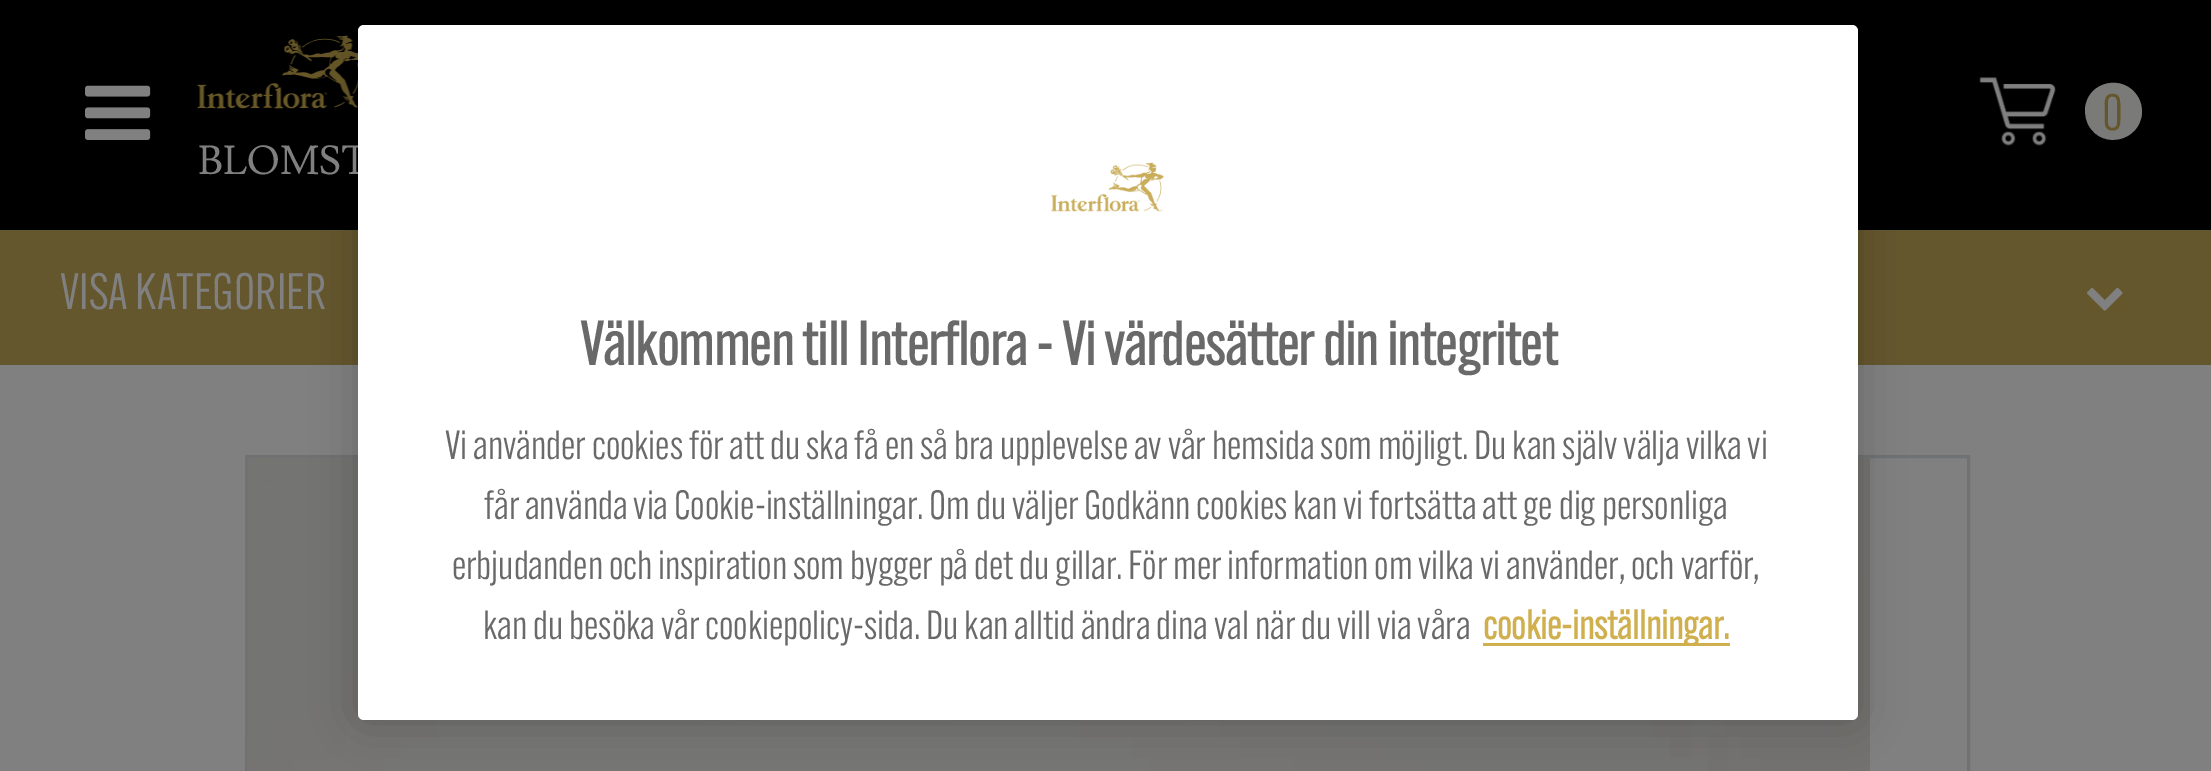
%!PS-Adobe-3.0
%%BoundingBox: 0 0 2211 771
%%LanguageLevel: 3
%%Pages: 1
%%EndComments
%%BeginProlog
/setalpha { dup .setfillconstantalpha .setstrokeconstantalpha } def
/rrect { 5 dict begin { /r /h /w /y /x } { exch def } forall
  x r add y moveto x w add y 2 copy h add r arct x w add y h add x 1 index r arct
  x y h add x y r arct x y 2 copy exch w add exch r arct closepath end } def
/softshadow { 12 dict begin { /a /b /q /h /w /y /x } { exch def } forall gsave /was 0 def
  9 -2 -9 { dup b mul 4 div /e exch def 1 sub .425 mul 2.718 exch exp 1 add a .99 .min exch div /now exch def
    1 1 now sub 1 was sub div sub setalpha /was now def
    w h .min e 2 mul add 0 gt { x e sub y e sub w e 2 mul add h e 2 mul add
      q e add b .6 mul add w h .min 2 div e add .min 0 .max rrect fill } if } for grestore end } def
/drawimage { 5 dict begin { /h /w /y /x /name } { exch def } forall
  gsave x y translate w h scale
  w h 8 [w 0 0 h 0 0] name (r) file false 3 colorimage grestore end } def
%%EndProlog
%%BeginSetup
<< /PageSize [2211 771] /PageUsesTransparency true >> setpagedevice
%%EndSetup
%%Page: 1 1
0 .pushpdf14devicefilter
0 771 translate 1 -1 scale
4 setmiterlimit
0.502 setgray
0 0 2211 771 rectfill
0 setgray
0 0 2211 230 rectfill
(images/1.raw) 85 85 66 55 drawimage
(images/2.raw) 1979 77 77 69 drawimage
0.478 0.478 0.475 setrgbcolor
newpath 2138 97 moveto 2141 102 2142 107 2142 113 curveto 2140 141 2103 150 2089 126 curveto 2086 121 2085 115 2085 109 curveto 2087 81 2124 73 2138 97 curveto closepath fill
(images/3.raw) 197 35 161 74 drawimage
0.396 0.341 0.176 setrgbcolor
0 230 2211 135 rectfill
(images/4.raw) 2087 287 36 24 drawimage
0.435 0.443 0.451 setrgbcolor
3 setlinewidth
246.5 456.5 1722 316 rectstroke
(images/5.raw) 247 457 1623 314 drawimage
0 setgray
358 25 1500 695 6 22.5 0.2 softshadow
/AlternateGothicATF-Regular [50 0 0 -50 0 0] selectfont
0.396 0.341 0.176 setrgbcolor
2102 130 moveto (0) show
/Lusitana-Regular [40 0 0 -40 0 0] selectfont
0.502 setgray
198 174 moveto (BLOMST) show
/AlternateGothicATF-Regular [50 0 0 -50 0 0] selectfont
60 309 moveto (VISA KATEGORIER) show
1 setgray
358 25 1500 695 6 rrect fill
(images/6.raw) 1051 162 114 50 drawimage
/AlternateGothicATF-Bold [60 0 0 -60 0 0] selectfont
0.412 setgray
580 365 moveto (Välkommen till Interflora - Vi värdesätter din integritet) show
/AlternateGothicATF-Regular [40 0 0 -40 0 0] selectfont
445 459 moveto (Vi använder cookies för att du ska få en så bra upplevelse av vår hemsida som möjligt. Du kan själv välja vilka vi) show
484 519 moveto (får använda via Cookie-inställningar. Om du väljer Godkänn cookies kan vi fortsätta att ge dig personliga) show
452 579 moveto (erbjudanden och inspiration som bygger på det du gillar. För mer information om vilka vi använder, och varför,) show
483 639 moveto (kan du besöka vår cookiepolicy-sida. Du kan alltid ändra dina val när du vill via våra) show
0.816 0.69 0.306 setrgbcolor
1483 643 247 3 rectfill
/AlternateGothicATF-Bold [40 0 0 -40 0 0] selectfont
1483 639 moveto (cookie-inställningar.) show
.poppdf14devicefilter showpage
%%EOF
